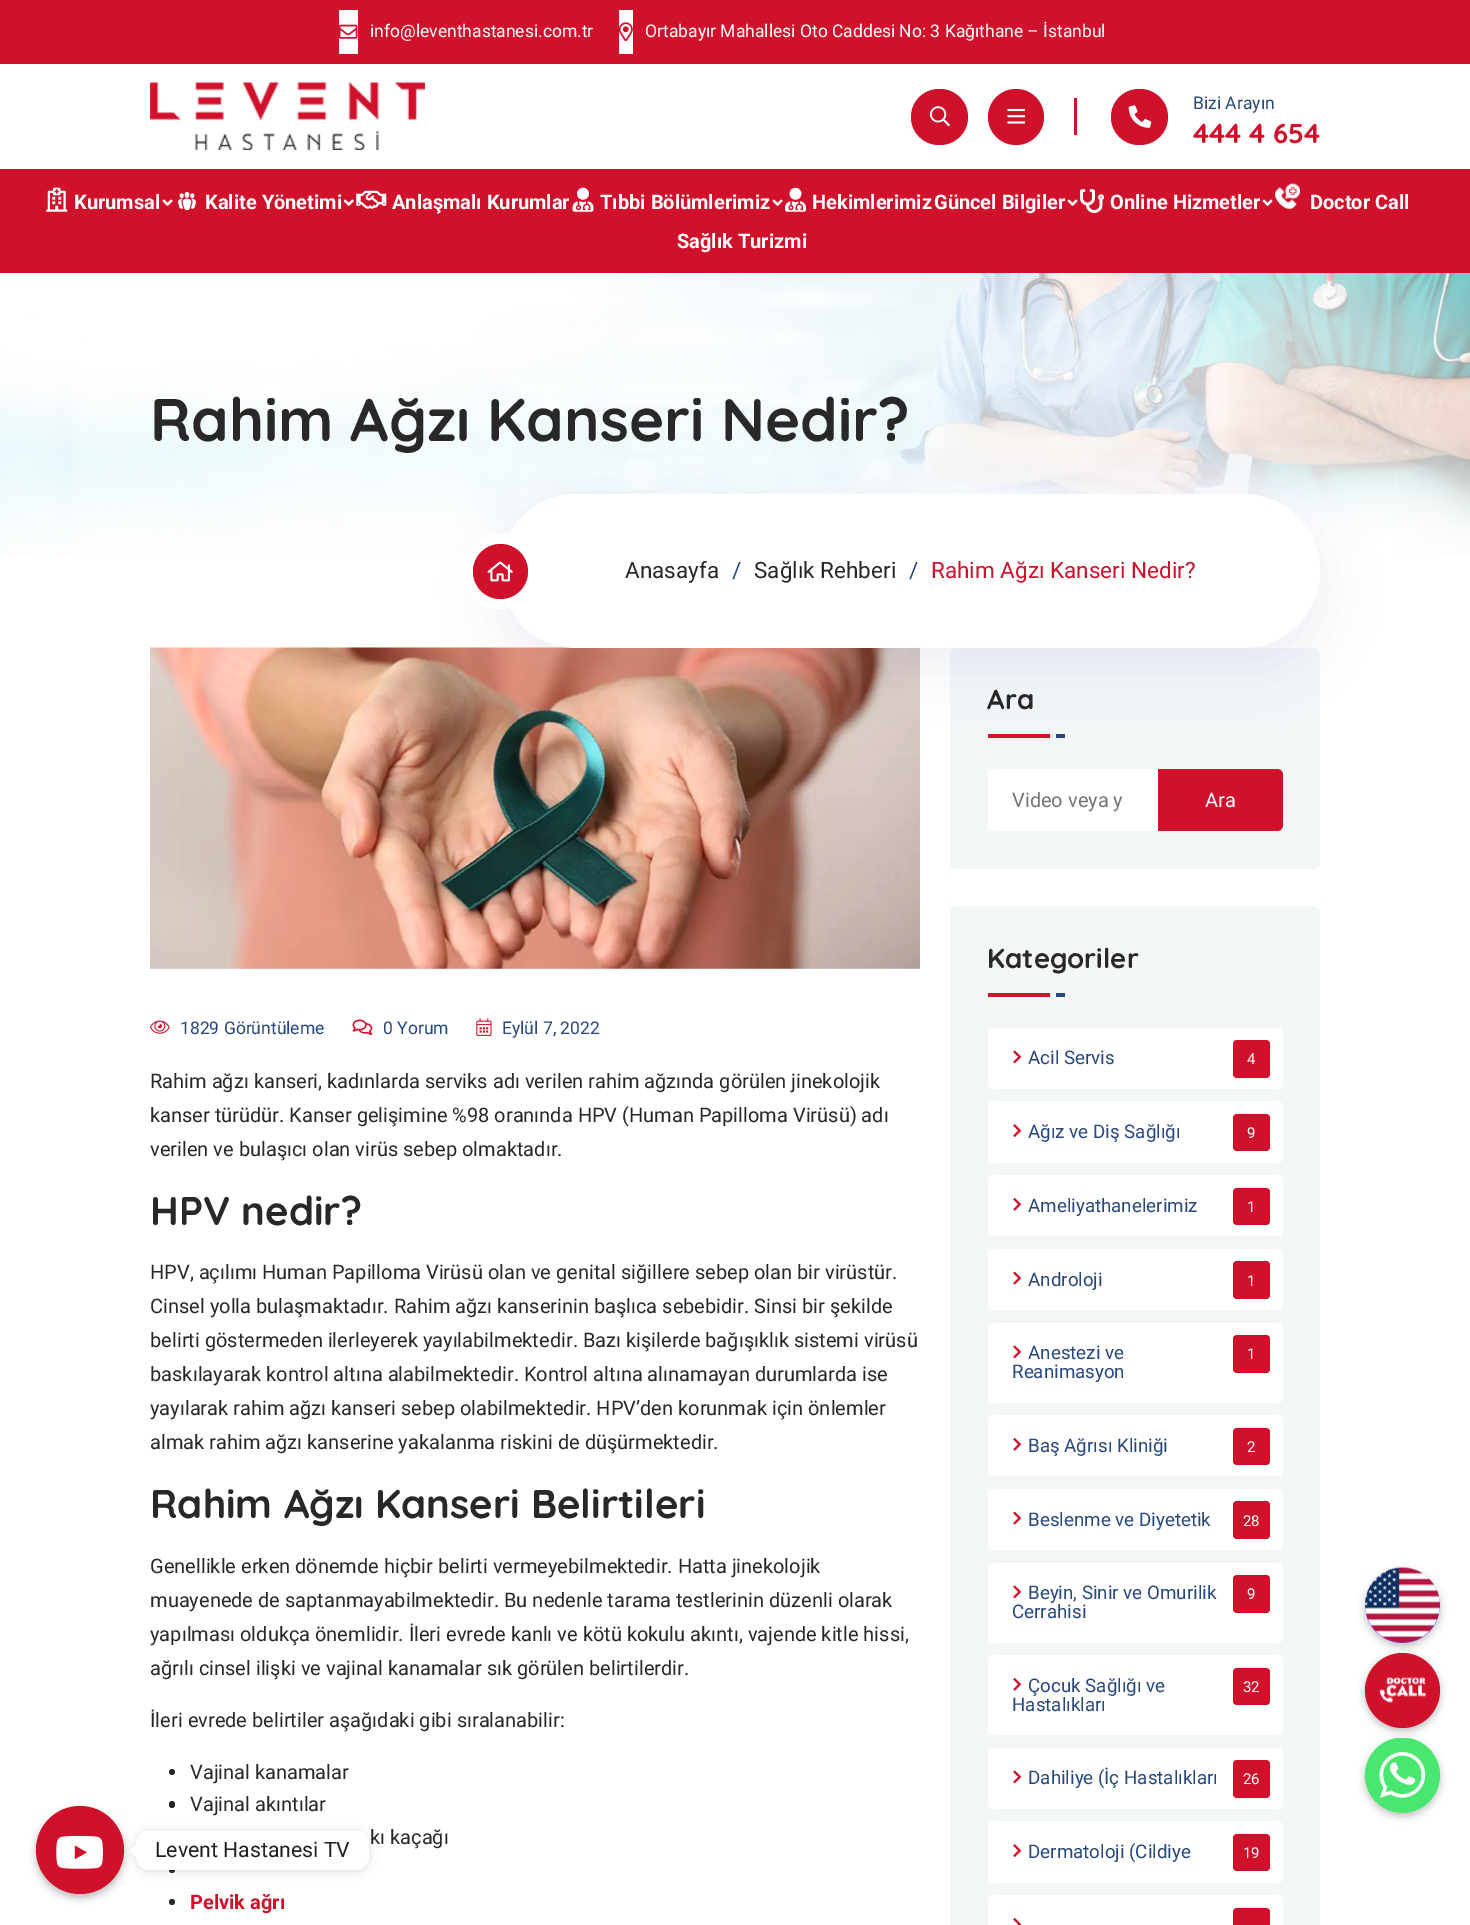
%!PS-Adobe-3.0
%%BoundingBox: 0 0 1470 1925
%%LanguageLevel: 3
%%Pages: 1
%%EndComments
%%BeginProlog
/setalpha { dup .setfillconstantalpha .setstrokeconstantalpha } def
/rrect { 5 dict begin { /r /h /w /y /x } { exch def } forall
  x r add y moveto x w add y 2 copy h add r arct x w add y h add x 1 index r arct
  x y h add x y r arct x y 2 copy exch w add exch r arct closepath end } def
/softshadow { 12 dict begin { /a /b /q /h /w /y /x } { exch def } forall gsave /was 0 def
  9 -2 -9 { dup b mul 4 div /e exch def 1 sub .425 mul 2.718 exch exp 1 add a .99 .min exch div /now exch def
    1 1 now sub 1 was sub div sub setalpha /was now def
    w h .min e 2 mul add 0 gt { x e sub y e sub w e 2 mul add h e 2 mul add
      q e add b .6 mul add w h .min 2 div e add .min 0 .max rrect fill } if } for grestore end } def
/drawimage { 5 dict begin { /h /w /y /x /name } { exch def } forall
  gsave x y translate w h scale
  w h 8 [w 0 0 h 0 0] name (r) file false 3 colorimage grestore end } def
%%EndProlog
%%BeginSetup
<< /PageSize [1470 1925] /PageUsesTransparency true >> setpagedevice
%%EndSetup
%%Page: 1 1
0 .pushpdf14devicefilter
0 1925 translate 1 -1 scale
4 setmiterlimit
1 setgray
0 0 1470 1925 rectfill
0.816 0.067 0.169 setrgbcolor
0 0 1470 64 rectfill
1 setgray
339 10 19 44 rectfill
(images/1.raw) 339 24 19 15 drawimage
619 10 14 44 rectfill
(images/2.raw) 619 22 14 20 drawimage
(images/3.raw) 150 82 275 68 drawimage
0.808 0.071 0.169 setrgbcolor
911 89 57 56 28 rrect fill
(images/4.raw) 930 106 20 21 drawimage
newpath 1016 117 28 0 360 arc closepath fill
(images/5.raw) 1007 108 18 16 drawimage
0.816 0.067 0.169 setrgbcolor
1074 98 3 37 rectfill
1111 89 57 56 28 rrect fill
(images/6.raw) 1128 105 24 23 drawimage
0 169 1470 104 rectfill
(images/7.raw) 46 187 22 25 drawimage
(images/8.raw) 162 199 11 7 drawimage
(images/9.raw) 178 191 18 20 drawimage
(images/10.raw) 343 199 11 7 drawimage
(images/11.raw) 356 190 31 19 drawimage
(images/12.raw) 572 187 22 25 drawimage
(images/8.raw) 772 199 11 7 drawimage
(images/13.raw) 785 187 21 25 drawimage
(images/8.raw) 1067 199 11 7 drawimage
(images/14.raw) 1080 189 24 24 drawimage
(images/8.raw) 1262 199 11 7 drawimage
(images/15.raw) 1275 183 25 26 drawimage
(images/16.raw) 0 273 1470 282 drawimage
(images/18.raw) 150 647 770 322 drawimage
0.953 0.965 0.969 setrgbcolor
950 648 370 221 6 rrect fill
0.816 0.067 0.169 setrgbcolor
988 734 62 4 rectfill
0.153 0.278 0.49 setrgbcolor
1056 734 9 4 rectfill
498 510 825 159 79.5 26.5 0.07 softshadow
1 setgray
500 494 820 154 77 rrect fill
newpath 500.5 571.5 37.5 0 360 arc closepath fill
0.816 0.067 0.169 setrgbcolor
newpath 500.5 571.5 27.5 0 360 arc closepath fill
(images/17.raw) 487 561 26 21 drawimage
(images/19.raw) 150 1020 20 14 drawimage
(images/20.raw) 352 1019 21 16 drawimage
(images/21.raw) 476 1018 16 18 drawimage
0.157 setgray
newpath 172 1772 3 0 360 arc closepath fill
169 1801 6 7 3 rrect fill
169 1866 6 7 3 rrect fill
newpath 172 1902 3 0 360 arc closepath fill
1 setgray
988 769 170 62 6 rrect fill
0.816 0.067 0.169 setrgbcolor
newpath 1158 769 moveto 1277 769 lineto 1280.5 769 1283 771.5 1283 775 curveto 1283 825 lineto 1283 828.5 1280.5 831 1277 831 curveto 1158 831 lineto closepath fill
0.953 0.965 0.969 setrgbcolor
950 906 370 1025 6 rrect fill
0.816 0.067 0.169 setrgbcolor
988 993 62 4 rectfill
0.153 0.278 0.49 setrgbcolor
1056 993 9 4 rectfill
1 setgray
988 1028 295 61 6 rrect fill
(images/22.raw) 1013 1050 8 14 drawimage
0.816 0.067 0.169 setrgbcolor
1233 1040 37 38 4 rrect fill
1 setgray
988 1101 295 62 6 rrect fill
(images/23.raw) 1013 1124 8 13 drawimage
0.816 0.067 0.169 setrgbcolor
1233 1114 37 37 4 rrect fill
1 setgray
988 1175 295 61 6 rrect fill
(images/24.raw) 1013 1198 8 13 drawimage
0.816 0.067 0.169 setrgbcolor
1233 1188 37 37 4 rrect fill
1 setgray
988 1249 295 61 6 rrect fill
(images/25.raw) 1013 1271 8 14 drawimage
0.816 0.067 0.169 setrgbcolor
1233 1261 37 38 4 rrect fill
1 setgray
988 1323 295 80 6 rrect fill
(images/22.raw) 1013 1345 8 14 drawimage
0.816 0.067 0.169 setrgbcolor
1233 1335 37 38 4 rrect fill
1 setgray
988 1415 295 61 6 rrect fill
(images/24.raw) 1013 1438 8 13 drawimage
0.816 0.067 0.169 setrgbcolor
1233 1428 37 37 4 rrect fill
1 setgray
988 1489 295 61 6 rrect fill
(images/25.raw) 1013 1511 8 14 drawimage
0.816 0.067 0.169 setrgbcolor
1233 1501 37 38 4 rrect fill
1 setgray
988 1563 295 80 6 rrect fill
(images/22.raw) 1013 1585 8 14 drawimage
0.816 0.067 0.169 setrgbcolor
1233 1575 37 38 4 rrect fill
1 setgray
988 1655 295 80 6 rrect fill
(images/24.raw) 1013 1678 8 13 drawimage
0.816 0.067 0.169 setrgbcolor
1233 1668 37 37 4 rrect fill
1 setgray
988 1748 295 61 6 rrect fill
(images/22.raw) 1013 1770 8 14 drawimage
0.816 0.067 0.169 setrgbcolor
1233 1760 37 38 4 rrect fill
1 setgray
988 1821 295 62 6 rrect fill
(images/23.raw) 1013 1844 8 13 drawimage
0.816 0.067 0.169 setrgbcolor
1233 1834 37 37 4 rrect fill
1 setgray
988 1895 295 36 6 rrect fill
(images/26.raw) 1013 1918 8 7 drawimage
0.816 0.067 0.169 setrgbcolor
1233 1908 37 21 4 rrect fill
0 setgray
1365 1571 75 75 37.5 4 0.25 softshadow
0.506 0.255 0.988 setrgbcolor
newpath 1402.5 1605.5 37.5 0 360 arc closepath fill
(images/27.raw) 1365 1567 75 76 drawimage
0 setgray
1365 1656 75 75 37.5 4 0.25 softshadow
0.816 0.067 0.169 setrgbcolor
newpath 1402.5 1690.5 37.5 0 360 arc closepath fill
(images/28.raw) 1379 1677 47 26 drawimage
0 setgray
1365 1741 75 75 37.5 4 0.25 softshadow
0.286 0.902 0.439 setrgbcolor
newpath 1402.5 1775.5 37.5 0 360 arc closepath fill
(images/29.raw) 1365 1738 75 75 drawimage
0 setgray
36 1810 88 88 44 4 0.25 softshadow
0.816 0.067 0.169 setrgbcolor
newpath 80 1850 44 0 360 arc closepath fill
(images/30.raw) 56 1835 47 34 drawimage
0 setgray
136 1833 233 38 13 5 0.15 softshadow
1 setgray
136 1831 233 39 13 rrect fill
newpath 136 1844.5 moveto 136 1857 lineto 130 1850.5 lineto closepath fill
/Roboto-Regular [17.5 0 0 -17.5 0 0] selectfont
370 37 moveto (info@leventhastanesi.com.tr) show
645 37 moveto (Ortabayır Mahallesi Oto Caddesi No: 3 Kağıthane – İstanbul) show
0.153 0.278 0.49 setrgbcolor
1193 109 moveto (Bizi Arayın) show
/Quicksand-Bold [27.5 0 0 -27.5 0 0] selectfont
0.816 0.067 0.169 setrgbcolor
1193 143 moveto (444 4 654) show
/Roboto-Bold [20 0 0 -20 0 0] selectfont
1 setgray
74 209 moveto (Kurumsal) show
205 209 moveto (Kalite Yönetimi) show
392 209 moveto (Anlaşmalı Kurumlar) show
600 209 moveto (Tıbbi Bölümlerimiz) show
812 209 moveto (Hekimlerimiz) show
934 209 moveto (Güncel Bilgiler) show
1110 209 moveto (Online Hizmetler) show
1310 209 moveto (Doctor Call) show
677 248 moveto (Sağlık Turizmi) show
/Quicksand-Bold [60 0 0 -60 0 0] selectfont
0.157 setgray
150 441 moveto (Rahim Ağzı Kanseri Nedir?) show
/Roboto-Regular [22.5 0 0 -22.5 0 0] selectfont
625 578 moveto (Anasayfa) show
0.153 0.278 0.49 setrgbcolor
732 578 moveto (/) show
0.157 setgray
754 578 moveto (Sağlık Rehberi) show
0.153 0.278 0.49 setrgbcolor
909 578 moveto (/) show
0.816 0.067 0.169 setrgbcolor
931 578 moveto (Rahim Ağzı Kanseri Nedir?) show
/Roboto-Regular [17.5 0 0 -17.5 0 0] selectfont
0.153 0.278 0.49 setrgbcolor
180 1034 moveto (1829 Görüntüleme) show
383 1034 moveto (0 Yorum) show
502 1034 moveto (Eylül 7, 2022) show
/Roboto-Regular [20 0 0 -20 0 0] selectfont
0.157 setgray
150 1088 moveto (Rahim ağzı kanseri, kadınlarda serviks adı verilen rahim ağzında görülen jinekolojik) show
150 1122 moveto (kanser türüdür. Kanser gelişimine %98 oranında HPV \(Human Papilloma Virüsü\) adı) show
150 1156 moveto (verilen ve bulaşıcı olan virüs sebep olmaktadır.) show
/Quicksand-Bold [40 0 0 -40 0 0] selectfont
150 1225 moveto (HPV nedir?) show
/Roboto-Regular [20 0 0 -20 0 0] selectfont
150 1279 moveto (HPV, açılımı Human Papilloma Virüsü olan ve genital siğillere sebep olan bir virüstür.) show
150 1313 moveto (Cinsel yolla bulaşmaktadır. Rahim ağzı kanserinin başlıca sebebidir. Sinsi bir şekilde) show
150 1347 moveto (belirti göstermeden ilerleyerek yayılabilmektedir. Bazı kişilerde bağışıklık sistemi virüsü) show
150 1381 moveto (baskılayarak kontrol altına alabilmektedir. Kontrol altına alınamayan durumlarda ise) show
150 1415 moveto (yayılarak rahim ağzı kanseri sebep olabilmektedir. HPV’den korunmak için önlemler) show
150 1449 moveto (almak rahim ağzı kanserine yakalanma riskini de düşürmektedir.) show
/Quicksand-Bold [40 0 0 -40 0 0] selectfont
150 1518 moveto (Rahim Ağzı Kanseri Belirtileri) show
/Roboto-Regular [20 0 0 -20 0 0] selectfont
150 1573 moveto (Genellikle erken dönemde hiçbir belirti vermeyebilmektedir. Hatta jinekolojik) show
150 1607 moveto (muayenede de saptanmayabilmektedir. Bu nedenle tarama testlerinin düzenli olarak) show
150 1641 moveto (yapılması oldukça önemlidir. İleri evrede kanlı ve kötü kokulu akıntı, vajende kitle hissi,) show
150 1675 moveto (ağrılı cinsel ilişki ve vajinal kanamalar sık görülen belirtilerdir.) show
150 1727 moveto (İleri evrede belirtiler aşağıdaki gibi sıralanabilir:) show
190 1779 moveto (Vajinal kanamalar) show
190 1811 moveto (Vajinal akıntılar) show
370 1844 moveto (kı kaçağı) show
/Roboto-Bold [20 0 0 -20 0 0] selectfont
0.816 0.067 0.169 setrgbcolor
190 1909 moveto (Pelvik ağrı) show
/Quicksand-Bold [27.5 0 0 -27.5 0 0] selectfont
0.157 setgray
987 709 moveto (Ara) show
/Roboto-Regular [20 0 0 -20 0 0] selectfont
0.459 setgray
1012 807 moveto (Video veya y) show
1 setgray
1205 807 moveto (Ara) show
/Quicksand-Bold [27.5 0 0 -27.5 0 0] selectfont
0.157 setgray
987 968 moveto (Kategoriler) show
/Roboto-Regular [18.75 0 0 -18.75 0 0] selectfont
0.153 0.278 0.49 setrgbcolor
1028 1064 moveto (Acil Servis) show
/Roboto-Regular [15 0 0 -15 0 0] selectfont
1 setgray
1247 1064 moveto (4) show
/Roboto-Regular [18.75 0 0 -18.75 0 0] selectfont
0.153 0.278 0.49 setrgbcolor
1028 1138 moveto (Ağız ve Diş Sağlığı) show
/Roboto-Regular [15 0 0 -15 0 0] selectfont
1 setgray
1247 1138 moveto (9) show
/Roboto-Regular [18.75 0 0 -18.75 0 0] selectfont
0.153 0.278 0.49 setrgbcolor
1028 1212 moveto (Ameliyathanelerimiz) show
/Roboto-Regular [15 0 0 -15 0 0] selectfont
1 setgray
1247 1212 moveto (1) show
/Roboto-Regular [18.75 0 0 -18.75 0 0] selectfont
0.153 0.278 0.49 setrgbcolor
1028 1286 moveto (Androloji) show
/Roboto-Regular [15 0 0 -15 0 0] selectfont
1 setgray
1247 1286 moveto (1) show
/Roboto-Regular [18.75 0 0 -18.75 0 0] selectfont
0.153 0.278 0.49 setrgbcolor
1028 1359 moveto (Anestezi ve) show
1012 1378 moveto (Reanimasyon) show
/Roboto-Regular [15 0 0 -15 0 0] selectfont
1 setgray
1247 1359 moveto (1) show
/Roboto-Regular [18.75 0 0 -18.75 0 0] selectfont
0.153 0.278 0.49 setrgbcolor
1028 1452 moveto (Baş Ağrısı Kliniği) show
/Roboto-Regular [15 0 0 -15 0 0] selectfont
1 setgray
1247 1452 moveto (2) show
/Roboto-Regular [18.75 0 0 -18.75 0 0] selectfont
0.153 0.278 0.49 setrgbcolor
1028 1526 moveto (Beslenme ve Diyetetik) show
/Roboto-Regular [15 0 0 -15 0 0] selectfont
1 setgray
1243 1526 moveto (28) show
/Roboto-Regular [18.75 0 0 -18.75 0 0] selectfont
0.153 0.278 0.49 setrgbcolor
1028 1599 moveto (Beyin, Sinir ve Omurilik) show
1012 1618 moveto (Cerrahisi) show
/Roboto-Regular [15 0 0 -15 0 0] selectfont
1 setgray
1247 1599 moveto (9) show
/Roboto-Regular [18.75 0 0 -18.75 0 0] selectfont
0.153 0.278 0.49 setrgbcolor
1028 1692 moveto (Çocuk Sağlığı ve) show
1012 1711 moveto (Hastalıkları) show
/Roboto-Regular [15 0 0 -15 0 0] selectfont
1 setgray
1243 1692 moveto (32) show
/Roboto-Regular [18.75 0 0 -18.75 0 0] selectfont
0.153 0.278 0.49 setrgbcolor
1028 1784 moveto (Dahiliye \(İç Hastalıkları) show
/Roboto-Regular [15 0 0 -15 0 0] selectfont
1 setgray
1243 1784 moveto (26) show
/Roboto-Regular [18.75 0 0 -18.75 0 0] selectfont
0.153 0.278 0.49 setrgbcolor
1028 1858 moveto (Dermatoloji \(Cildiye) show
/Roboto-Regular [15 0 0 -15 0 0] selectfont
1 setgray
1243 1858 moveto (19) show
/Roboto-Regular [21.25 0 0 -21.25 0 0] selectfont
0.125 setgray
155 1857 moveto (Levent Hastanesi TV) show
.poppdf14devicefilter showpage
%%EOF
